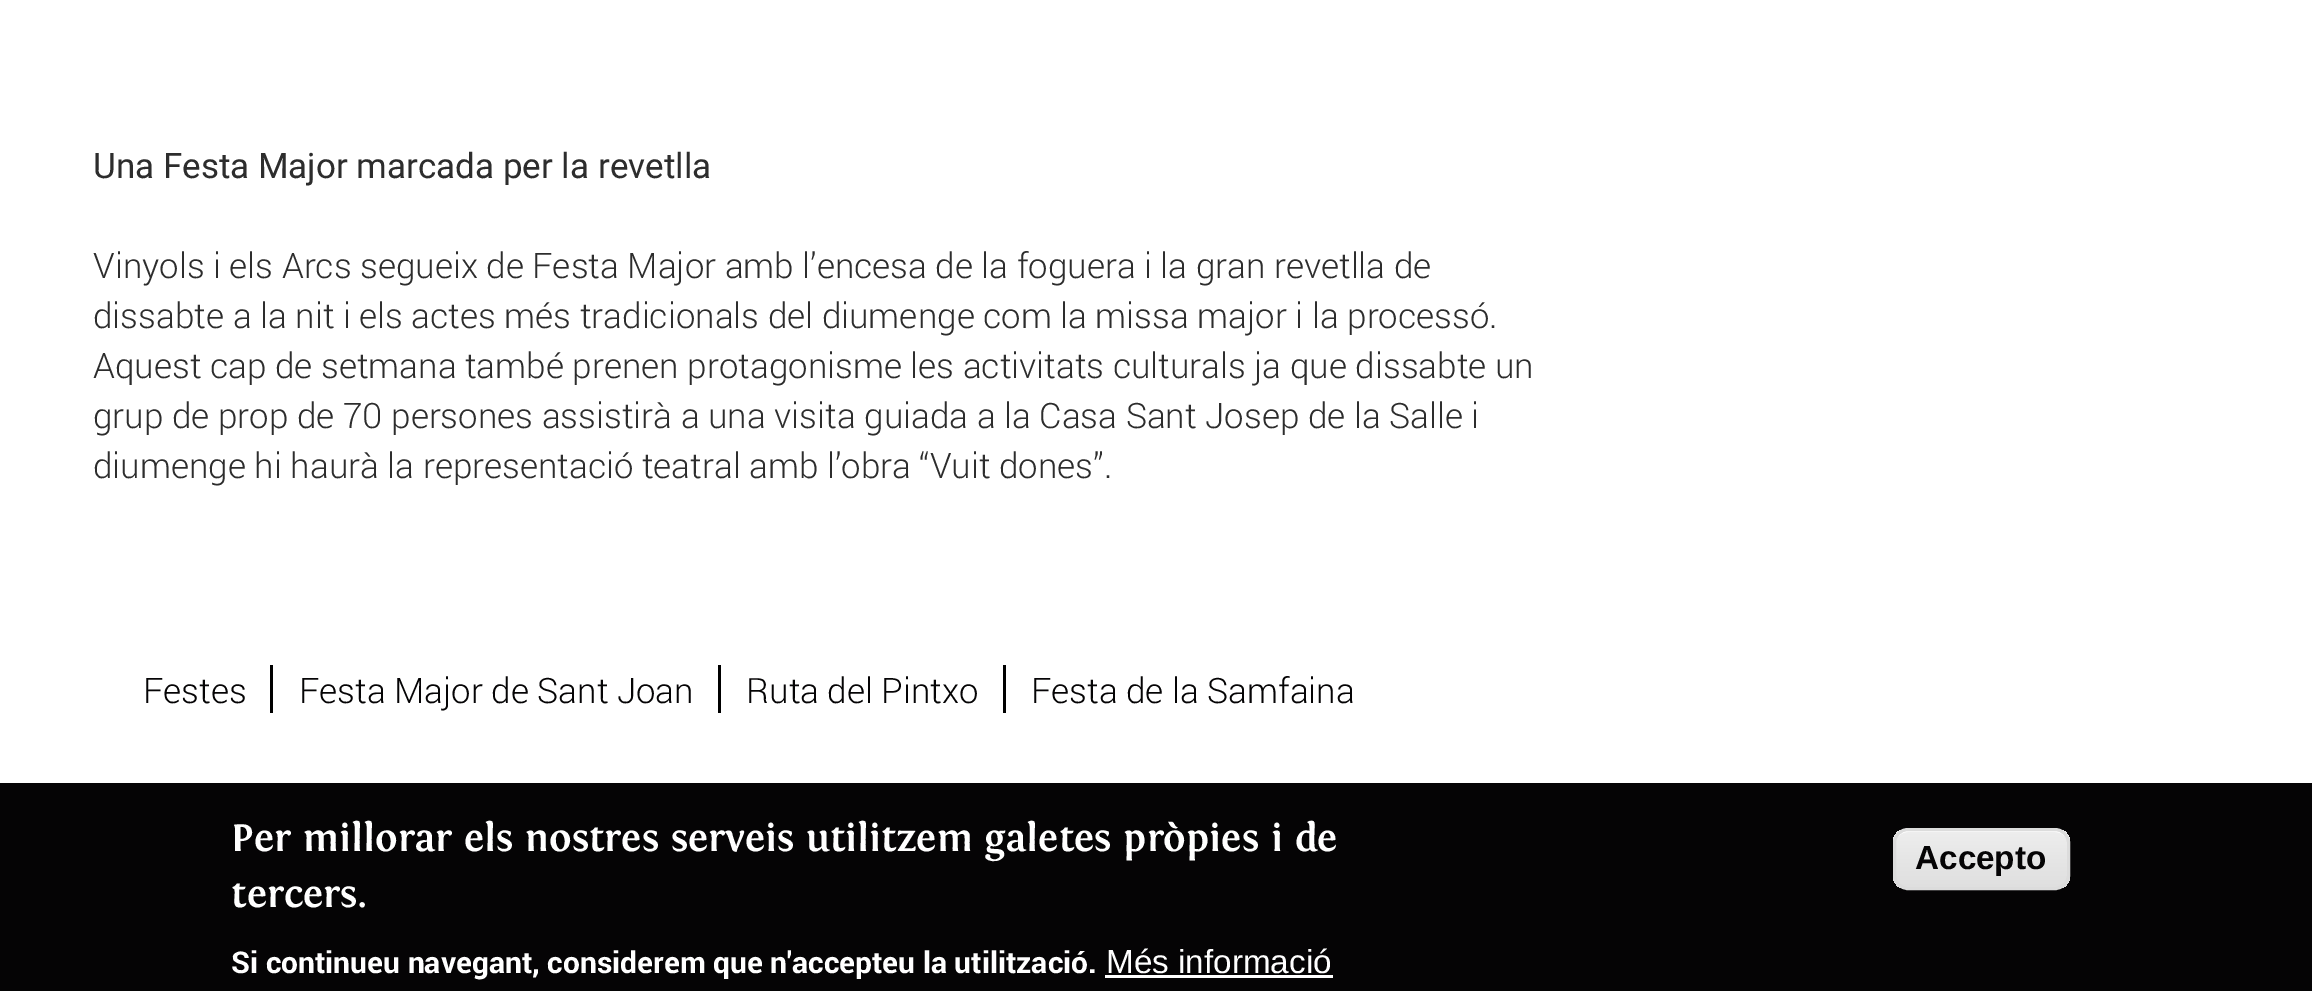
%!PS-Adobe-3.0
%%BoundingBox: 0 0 2312 991
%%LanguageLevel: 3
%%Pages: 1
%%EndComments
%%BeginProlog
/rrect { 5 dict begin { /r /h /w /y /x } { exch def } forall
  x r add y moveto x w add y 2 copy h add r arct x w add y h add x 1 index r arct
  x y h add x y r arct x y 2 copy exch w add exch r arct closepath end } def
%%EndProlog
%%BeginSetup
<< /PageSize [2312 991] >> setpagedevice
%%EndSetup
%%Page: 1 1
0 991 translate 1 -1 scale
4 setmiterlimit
1 setgray
0 0 2312 991 rectfill
0 setgray
270 665 3 48 rectfill
718 665 3 48 rectfill
1003 665 3 48 rectfill
0.02 0.016 0.02 setrgbcolor
0 783 2312 208 rectfill
1 setgray
1105 975 228 3 rectfill
gsave
1893 828 177 62 15 rrect clip newpath
gsave newpath 1893 830 moveto 2070 830 lineto 2070 888 lineto 1893 888 lineto closepath clip newpath
<< /ShadingType 2 /ColorSpace /DeviceRGB /Coords [1981 830 1981 888] /Extend [true true] /Function << /FunctionType 3 /Domain [0 1] /Functions [<< /FunctionType 2 /Domain [0 1] /C0 [0.929 0.929 0.929] /C1 [0.929 0.929 0.929] /N 1 >> << /FunctionType 2 /Domain [0 1] /C0 [0.929 0.929 0.929] /C1 [0.875 0.875 0.875] /N 1 >>] /Bounds [0.05] /Encode [0 1 0 1] >> >> shfill grestore
grestore
newpath 1908 832 moveto 2055 832 lineto 2062 832 2068 838 2068 845 curveto 2068 824 2045 830 2030 830 curveto 1932 830 lineto 1918 830 1895 824 1895 845 curveto 1895 838 1901 832 1908 832 curveto closepath fill
0.863 setgray
3 setlinewidth
1894.5 829.5 174 59 13.5 rrect stroke
/Roboto-Regular [35 0 0 -35 0 0] selectfont
0.176 setgray
93 178 moveto (Una Festa Major marcada per la revetlla) show
/Roboto-Light [35 0 0 -35 0 0] selectfont
93 278 moveto (Vinyols i els Arcs segueix de Festa Major amb l’encesa de la foguera i la gran revetlla de) show
93 328 moveto (dissabte a la nit i els actes més tradicionals del diumenge com la missa major i la processó.) show
93 378 moveto (Aquest cap de setmana també prenen protagonisme les activitats culturals ja que dissabte un) show
93 428 moveto (grup de prop de 70 persones assistirà a una visita guiada a la Casa Sant Josep de la Salle i) show
93 478 moveto (diumenge hi haurà la representació teatral amb l’obra “Vuit dones”.) show
0.02 0.016 0.02 setrgbcolor
143 703 moveto (Festes) show
299 703 moveto (Festa Major de Sant Joan) show
746 703 moveto (Ruta del Pintxo) show
1031 703 moveto (Festa de la Samfaina) show
/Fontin-Bold [40 0 0 -40 0 0] selectfont
1 setgray
231 851 moveto (Per millorar els nostres serveis utilitzem galetes pròpies i de) show
231 907 moveto (tercers.) show
/Roboto-Bold [30 0 0 -30 0 0] selectfont
231 973 moveto (Si continueu navegant, considerem que n'accepteu la utilització.) show
/LiberationSans-Regular [33.25 0 0 -33.25 0 0] selectfont
1106 973 moveto (Més informació) show
/LiberationSans-Bold [33.25 0 0 -33.25 0 0] selectfont
0.02 0.016 0.02 setrgbcolor
1915 869 moveto (Accepto) show
showpage
%%EOF
